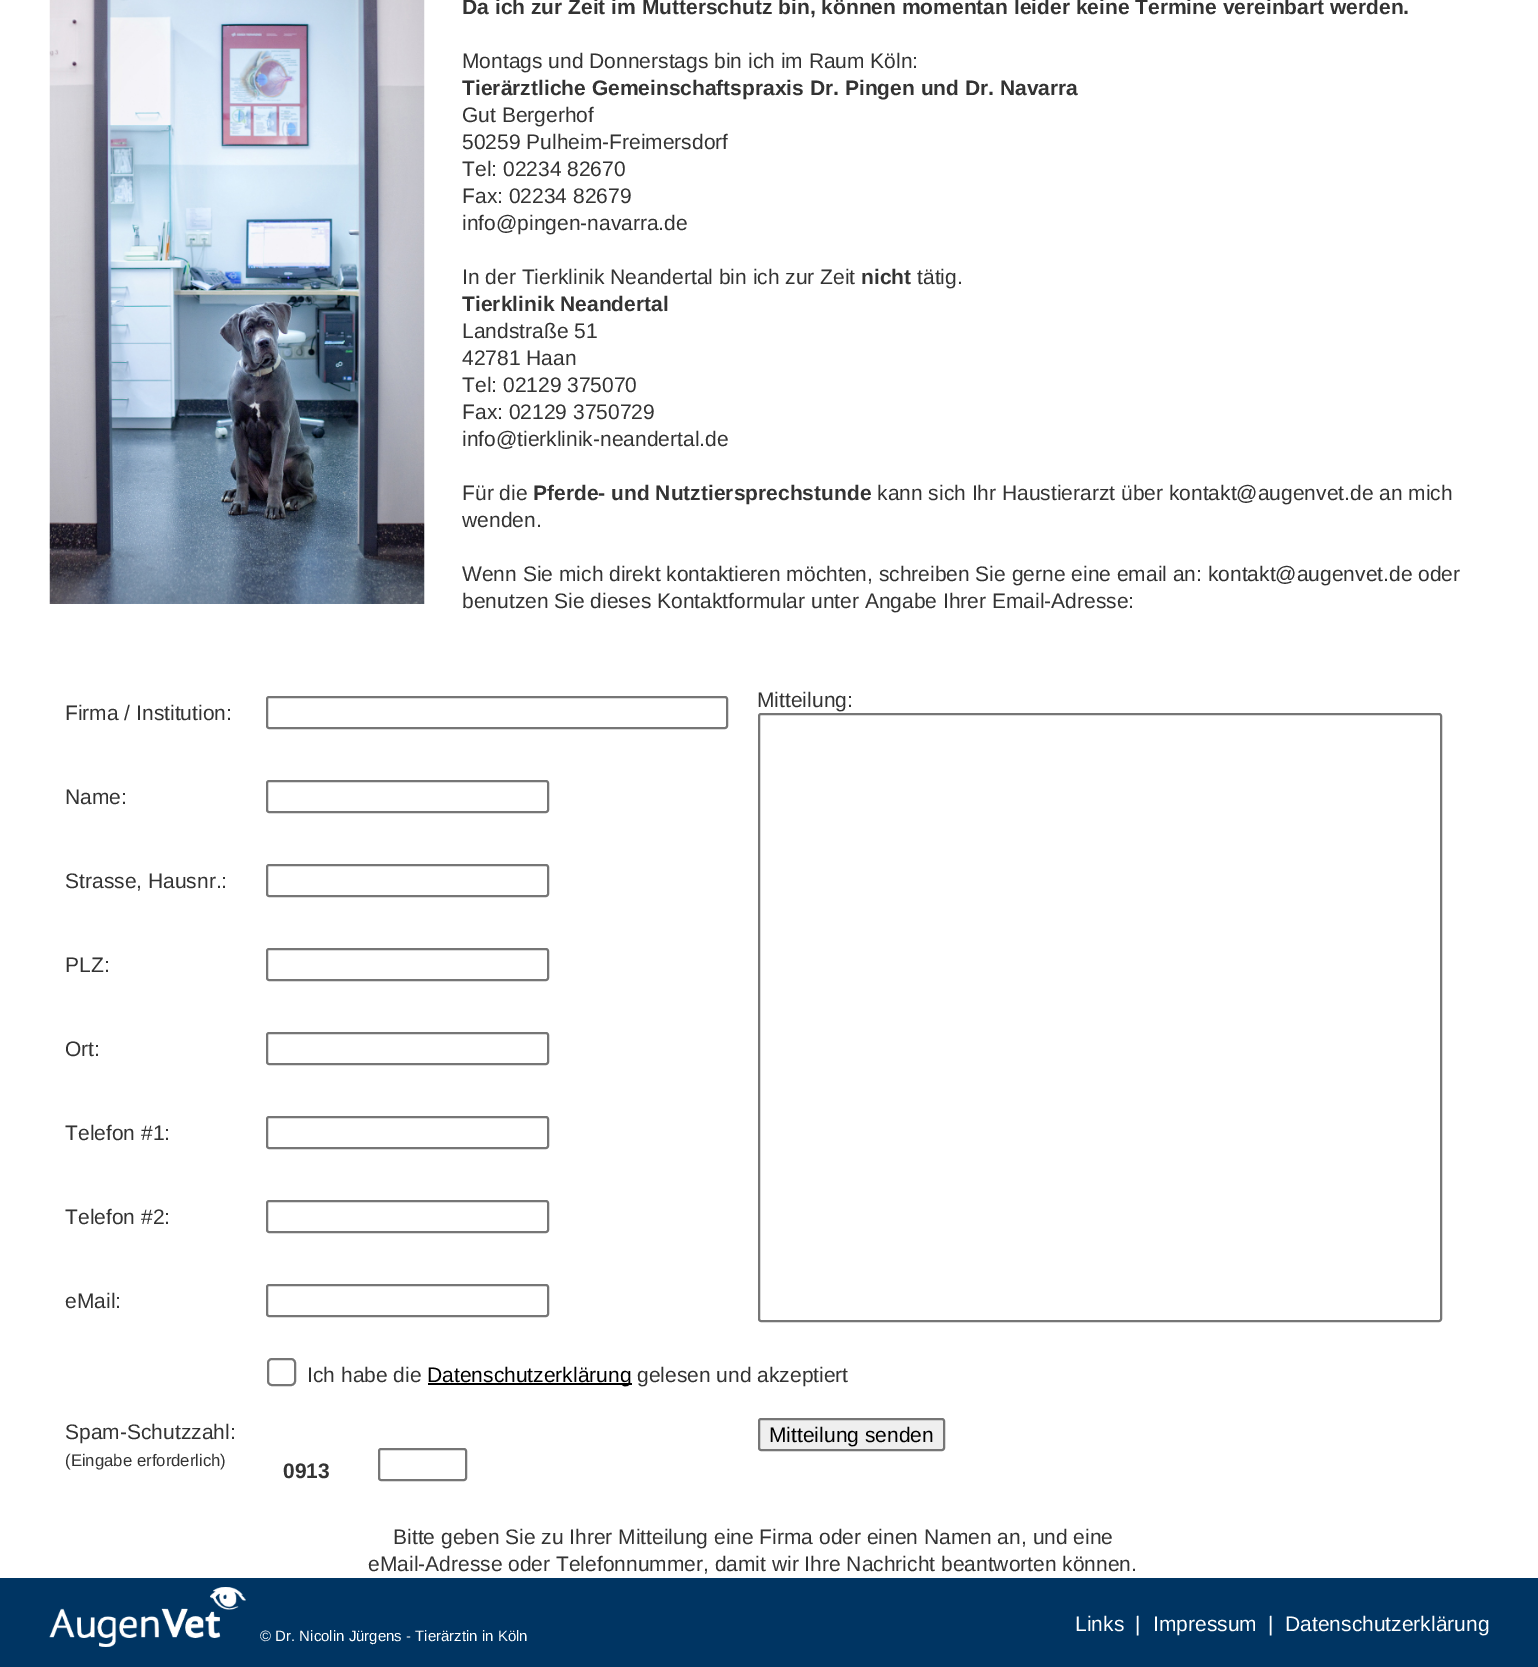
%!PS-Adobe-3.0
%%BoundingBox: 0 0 1538 1667
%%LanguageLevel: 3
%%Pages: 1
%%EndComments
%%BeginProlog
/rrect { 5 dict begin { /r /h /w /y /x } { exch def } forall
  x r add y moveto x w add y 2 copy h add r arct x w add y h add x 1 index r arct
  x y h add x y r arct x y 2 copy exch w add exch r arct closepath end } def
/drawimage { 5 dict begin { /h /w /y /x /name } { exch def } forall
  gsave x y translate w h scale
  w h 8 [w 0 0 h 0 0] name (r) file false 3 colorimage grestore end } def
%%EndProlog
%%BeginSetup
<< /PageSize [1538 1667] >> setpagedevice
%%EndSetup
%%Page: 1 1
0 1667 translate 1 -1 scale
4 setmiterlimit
1 setgray
0 0 1538 1667 rectfill
(images/1.raw) 49 0 376 604 drawimage
0.463 setgray
2 setlinewidth
267 697 460 31 2 rrect stroke
759 714 682 607 2 rrect stroke
267 781 281 31 2 rrect stroke
267 865 281 31 2 rrect stroke
267 949 281 31 2 rrect stroke
267 1033 281 31 2 rrect stroke
267 1117 281 31 2 rrect stroke
267 1201 281 31 2 rrect stroke
267 1285 281 31 2 rrect stroke
268 1359 27 26 4 rrect stroke
0 setgray
428 1383 204 2 rectfill
0.937 setgray
759 1419 185 31 2 rrect gsave fill grestore
0.463 setgray
stroke
379 1449 87 31 2 rrect stroke
0 0.208 0.388 setrgbcolor
0 1578 1538 89 rectfill
(images/2.raw) 49 1587 197 60 drawimage
/LiberationSans-Bold [21 0 0 -21 0 0] selectfont
0.2 setgray
462 14 moveto (Da ich zur Zeit im Mutterschutz bin, können momentan leider keine Termine vereinbart werden.) show
/LiberationSans-Regular [21 0 0 -21 0 0] selectfont
462 68 moveto (Montags und Donnerstags bin ich im Raum Köln:) show
/LiberationSans-Bold [21 0 0 -21 0 0] selectfont
462 95 moveto (Tierärztliche Gemeinschaftspraxis Dr. Pingen und Dr. Navarra) show
/LiberationSans-Regular [21 0 0 -21 0 0] selectfont
462 122 moveto (Gut Bergerhof) show
462 149 moveto (50259 Pulheim-Freimersdorf) show
462 176 moveto (Tel: 02234 82670) show
462 203 moveto (Fax: 02234 82679) show
462 230 moveto (info@pingen-navarra.de) show
462 284 moveto (In der Tierklinik Neandertal bin ich zur Zeit) show
/LiberationSans-Bold [21 0 0 -21 0 0] selectfont
861 284 moveto (nicht) show
/LiberationSans-Regular [21 0 0 -21 0 0] selectfont
917 284 moveto (tätig.) show
/LiberationSans-Bold [21 0 0 -21 0 0] selectfont
462 311 moveto (Tierklinik Neandertal) show
/LiberationSans-Regular [21 0 0 -21 0 0] selectfont
462 338 moveto (Landstraße 51) show
462 365 moveto (42781 Haan) show
462 392 moveto (Tel: 02129 375070) show
462 419 moveto (Fax: 02129 3750729) show
462 446 moveto (info@tierklinik-neandertal.de) show
462 500 moveto (Für die) show
/LiberationSans-Bold [21 0 0 -21 0 0] selectfont
533 500 moveto (Pferde- und Nutztiersprechstunde) show
/LiberationSans-Regular [21 0 0 -21 0 0] selectfont
877 500 moveto (kann sich Ihr Haustierarzt über kontakt@augenvet.de an mich) show
462 527 moveto (wenden.) show
462 581 moveto (Wenn Sie mich direkt kontaktieren möchten, schreiben Sie gerne eine email an: kontakt@augenvet.de oder) show
462 608 moveto (benutzen Sie dieses Kontaktformular unter Angabe Ihrer Email-Adresse:) show
65 720 moveto (Firma / Institution:) show
757 707 moveto (Mitteilung:) show
65 804 moveto (Name:) show
65 888 moveto (Strasse, Hausnr.:) show
65 972 moveto (PLZ:) show
65 1056 moveto (Ort:) show
65 1140 moveto (Telefon #1:) show
65 1224 moveto (Telefon #2:) show
65 1308 moveto (eMail:) show
307 1382 moveto (Ich habe die) show
0 setgray
427 1382 moveto (Datenschutzerklärung) show
0.2 setgray
637 1382 moveto (gelesen und akzeptiert) show
65 1439 moveto (Spam-Schutzzahl:) show
/LiberationSans-Regular [16.75 0 0 -16.75 0 0] selectfont
65 1466 moveto (\(Eingabe erforderlich\)) show
/LiberationSans-Regular [21 0 0 -21 0 0] selectfont
0 setgray
769 1442 moveto (Mitteilung senden) show
/LiberationSans-Bold [21 0 0 -21 0 0] selectfont
0.2 setgray
283 1478 moveto (0913) show
/LiberationSans-Regular [21 0 0 -21 0 0] selectfont
393 1544 moveto (Bitte geben Sie zu Ihrer Mitteilung eine Firma oder einen Namen an, und eine) show
368 1571 moveto (eMail-Adresse oder Telefonnummer, damit wir Ihre Nachricht beantworten können.) show
1 setgray
1075 1631 moveto (Links) show
1135 1631 moveto (|) show
1153 1631 moveto (Impressum) show
1268 1631 moveto (|) show
1285 1631 moveto (Datenschutzerklärung) show
/LiberationSans-Regular [15 0 0 -15 0 0] selectfont
260 1641 moveto (© Dr. Nicolin Jürgens - Tierärztin in Köln) show
showpage
%%EOF
